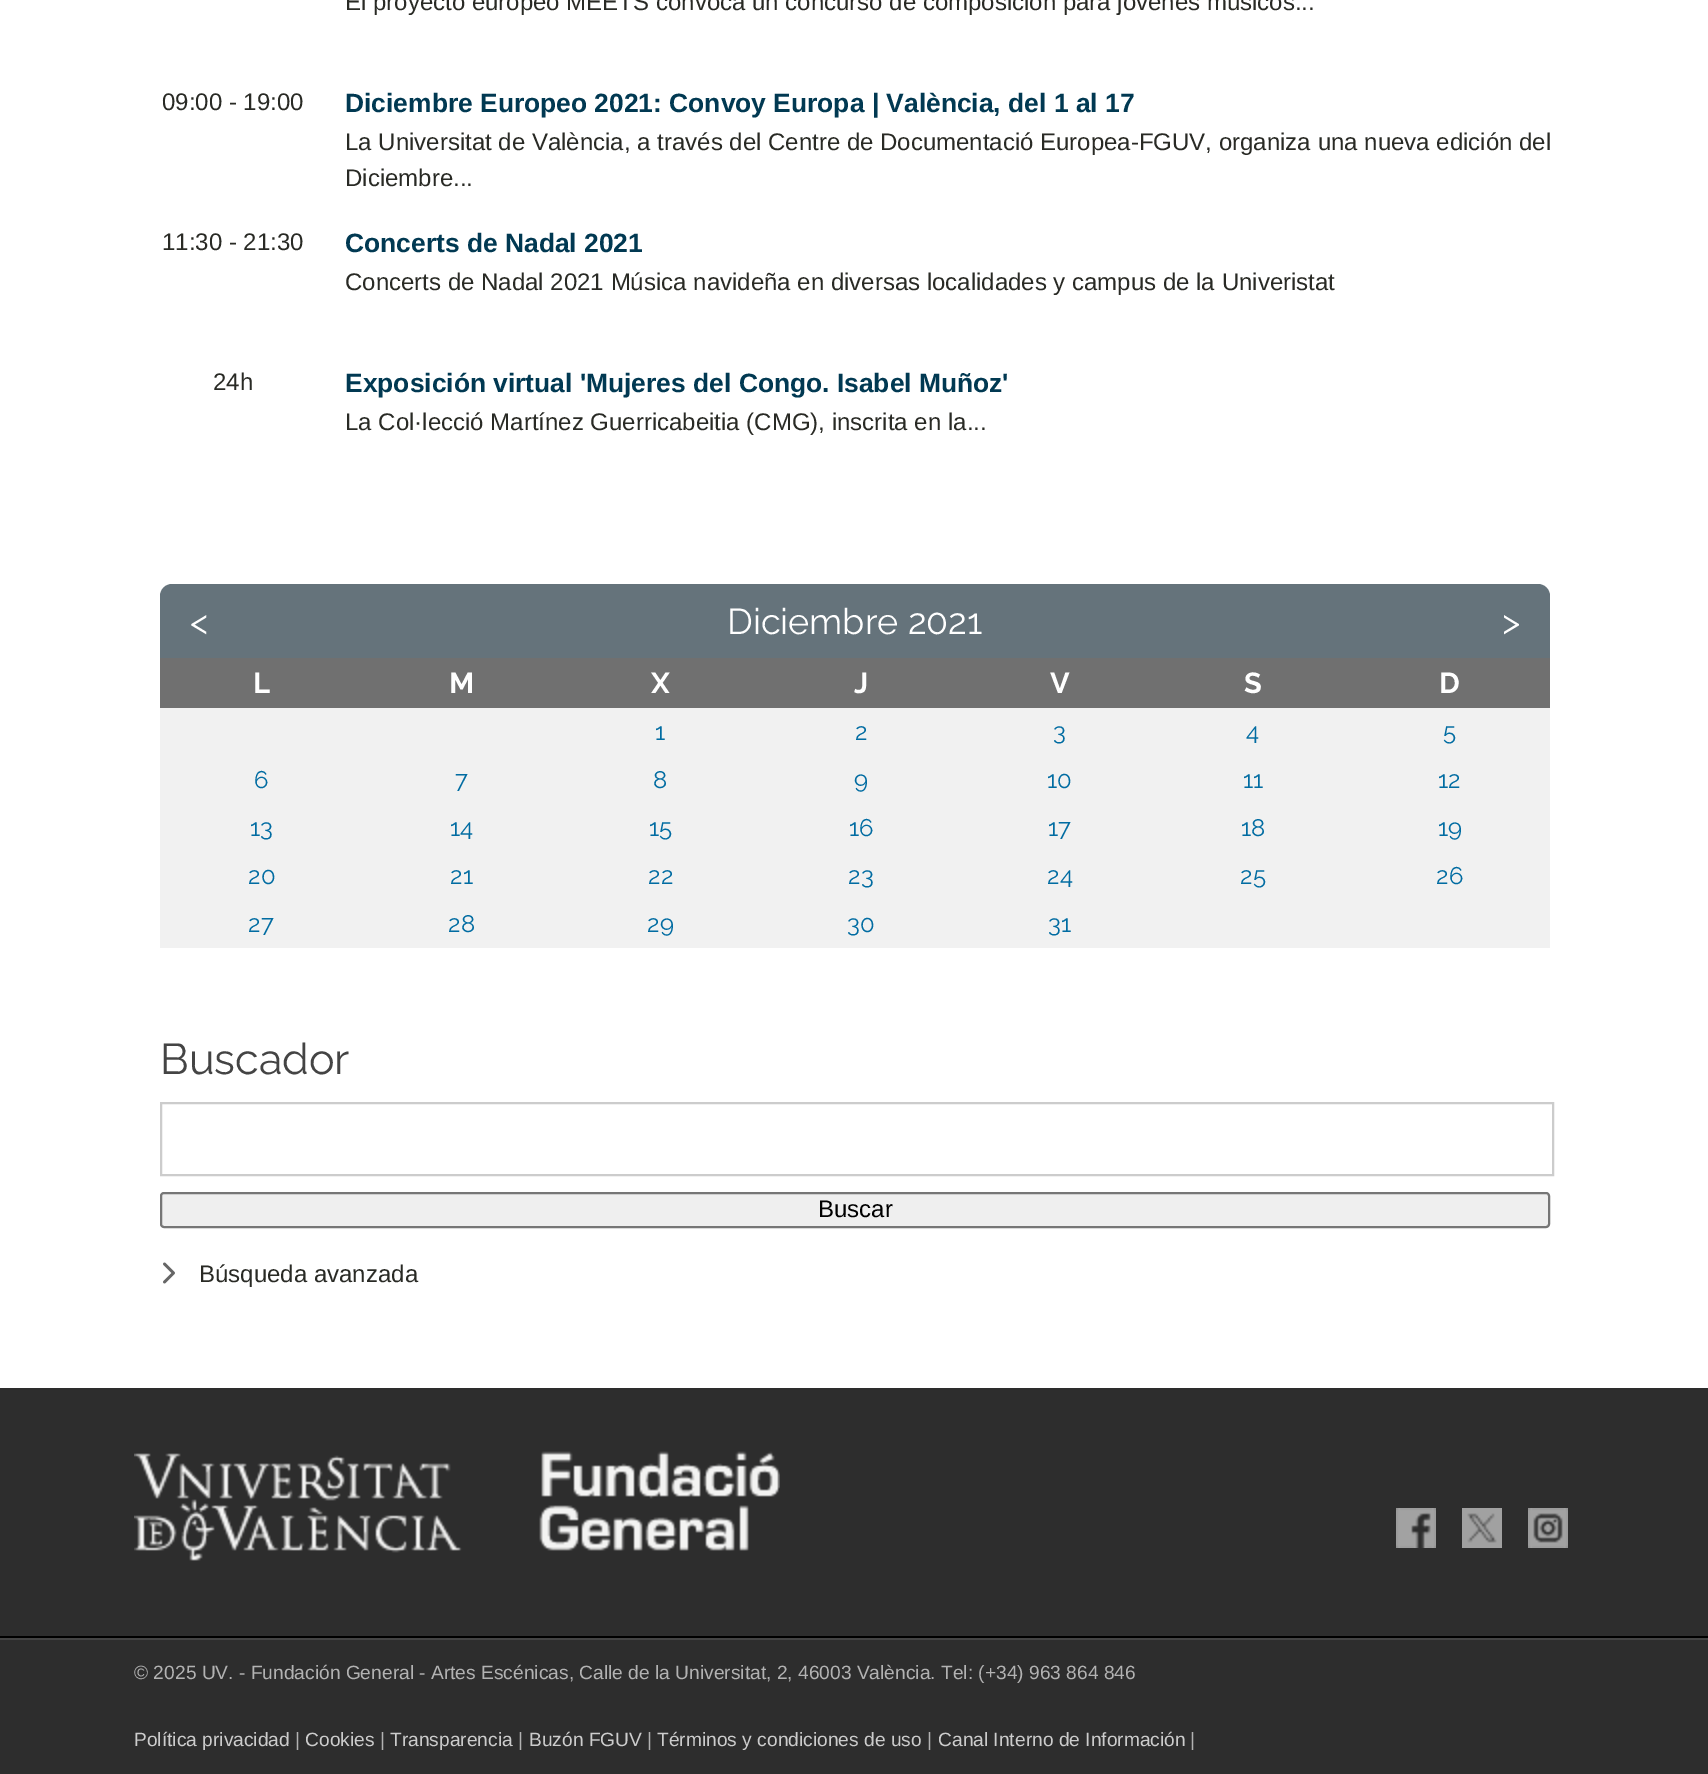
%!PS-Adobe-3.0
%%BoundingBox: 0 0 1708 1774
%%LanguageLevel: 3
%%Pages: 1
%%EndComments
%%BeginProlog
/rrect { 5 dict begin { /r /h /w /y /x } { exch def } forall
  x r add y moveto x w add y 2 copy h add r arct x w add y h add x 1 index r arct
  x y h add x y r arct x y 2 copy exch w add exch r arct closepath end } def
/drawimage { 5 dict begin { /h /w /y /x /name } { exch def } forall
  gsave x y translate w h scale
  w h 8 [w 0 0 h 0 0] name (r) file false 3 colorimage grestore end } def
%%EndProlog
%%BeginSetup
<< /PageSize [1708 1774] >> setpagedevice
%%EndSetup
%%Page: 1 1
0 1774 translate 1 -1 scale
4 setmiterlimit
1 setgray
0 0 1708 1774 rectfill
0.396 0.451 0.482 setrgbcolor
newpath 172 584 moveto 1538 584 lineto 1544.5 584 1550 589.5 1550 596 curveto 1550 658 lineto 160 658 lineto 160 596 lineto 160 589.5 165.5 584 172 584 curveto closepath fill
0.945 setgray
160 708 1390 240 rectfill
0.439 setgray
160 658 1390 50 rectfill
0.8 setgray
2 setlinewidth
161 1103 1392 72 rectstroke
0.937 setgray
161 1193 1388 34 3 rrect gsave fill grestore
0.463 setgray
stroke
(images/1.raw) 163 1262 12 22 drawimage
0.176 setgray
0 1388 1708 386 rectfill
(images/2.raw) 134 1451 646 110 drawimage
(images/3.raw) 1396 1508 40 40 drawimage
(images/4.raw) 1462 1508 40 40 drawimage
(images/5.raw) 1528 1508 40 40 drawimage
0 setgray
0 1636 1708 2 rectfill
0.267 setgray
0 1638 1708 2 rectfill
/LiberationSans-Regular [24 0 0 -24 0 0] selectfont
0.161 0.165 0.145 setrgbcolor
345 10 moveto (El proyecto europeo MEETS convoca un concurso de composición para jóvenes músicos...) show
162 110 moveto (09:00 - 19:00) show
/LiberationSans-Bold [26.4 0 0 -26.4 0 0] selectfont
0.004 0.224 0.322 setrgbcolor
345 112 moveto (Diciembre Europeo 2021: Convoy Europa | València, del 1 al 17) show
/LiberationSans-Regular [24 0 0 -24 0 0] selectfont
0.161 0.165 0.145 setrgbcolor
345 150 moveto (La Universitat de València, a través del Centre de Documentació Europea-FGUV, organiza una nueva edición del) show
345 186 moveto (Diciembre...) show
162 250 moveto (11:30 - 21:30) show
/LiberationSans-Bold [26.4 0 0 -26.4 0 0] selectfont
0.004 0.224 0.322 setrgbcolor
345 252 moveto (Concerts de Nadal 2021) show
/LiberationSans-Regular [24 0 0 -24 0 0] selectfont
0.161 0.165 0.145 setrgbcolor
345 290 moveto (Concerts de Nadal 2021 Música navideña en diversas localidades y campus de la Univeristat) show
213 390 moveto (24h) show
/LiberationSans-Bold [26.4 0 0 -26.4 0 0] selectfont
0.004 0.224 0.322 setrgbcolor
345 392 moveto (Exposición virtual 'Mujeres del Congo. Isabel Muñoz') show
/LiberationSans-Regular [24 0 0 -24 0 0] selectfont
0.161 0.165 0.145 setrgbcolor
345 430 moveto (La Col·lecció Martínez Guerricabeitia \(CMG\), inscrita en la...) show
/Raleway-Regular [36 0 0 -36 0 0] selectfont
1 setgray
190 634 moveto (<) show
727 634 moveto (Diciembre 2021) show
1502 634 moveto (>) show
/Raleway-Bold [29 0 0 -29 0 0] selectfont
253 693 moveto (L) show
449 693 moveto (M) show
651 693 moveto (X) show
854 693 moveto (J) show
1050 693 moveto (V) show
1244 693 moveto (S) show
1439 693 moveto (D) show
/Raleway-Regular [24 0 0 -24 0 0] selectfont
0.004 0.424 0.635 setrgbcolor
655 740 moveto (1) show
855 740 moveto (2) show
1053 740 moveto (3) show
1246 740 moveto (4) show
1443 740 moveto (5) show
254 788 moveto (6) show
455 788 moveto (7) show
653 788 moveto (8) show
854 788 moveto (9) show
1047 788 moveto (10) show
1243 788 moveto (11) show
1438 788 moveto (12) show
250 836 moveto (13) show
450 836 moveto (14) show
649 836 moveto (15) show
849 836 moveto (16) show
1048 836 moveto (17) show
1241 836 moveto (18) show
1438 836 moveto (19) show
248 884 moveto (20) show
450 884 moveto (21) show
648 884 moveto (22) show
848 884 moveto (23) show
1047 884 moveto (24) show
1240 884 moveto (25) show
1436 884 moveto (26) show
248 932 moveto (27) show
448 932 moveto (28) show
647 932 moveto (29) show
847 932 moveto (30) show
1048 932 moveto (31) show
/Raleway-Regular [43 0 0 -43 0 0] selectfont
0.267 setgray
160 1074 moveto (Buscador) show
/LiberationSans-Regular [24 0 0 -24 0 0] selectfont
0 setgray
818 1217 moveto (Buscar) show
0.161 0.165 0.145 setrgbcolor
199 1282 moveto (Búsqueda avanzada) show
/LiberationSans-Regular [19.2 0 0 -19.2 0 0] selectfont
0.698 setgray
134 1679 moveto (© 2025 UV. - Fundación General - Artes Escénicas, Calle de la Universitat, 2, 46003 València. Tel: \(+34\) 963 864 846) show
0.8 setgray
134 1746 moveto (Política privacidad) show
0.698 setgray
295 1746 moveto (|) show
0.8 setgray
305 1746 moveto (Cookies) show
0.698 setgray
380 1746 moveto (|) show
0.8 setgray
390 1746 moveto (Transparencia) show
0.698 setgray
518 1746 moveto (|) show
0.8 setgray
529 1746 moveto (Buzón FGUV) show
0.698 setgray
647 1746 moveto (|) show
0.8 setgray
657 1746 moveto (Términos y condiciones de uso) show
0.698 setgray
927 1746 moveto (|) show
0.8 setgray
938 1746 moveto (Canal Interno de Información) show
0.698 setgray
1190 1746 moveto (|) show
showpage
%%EOF
